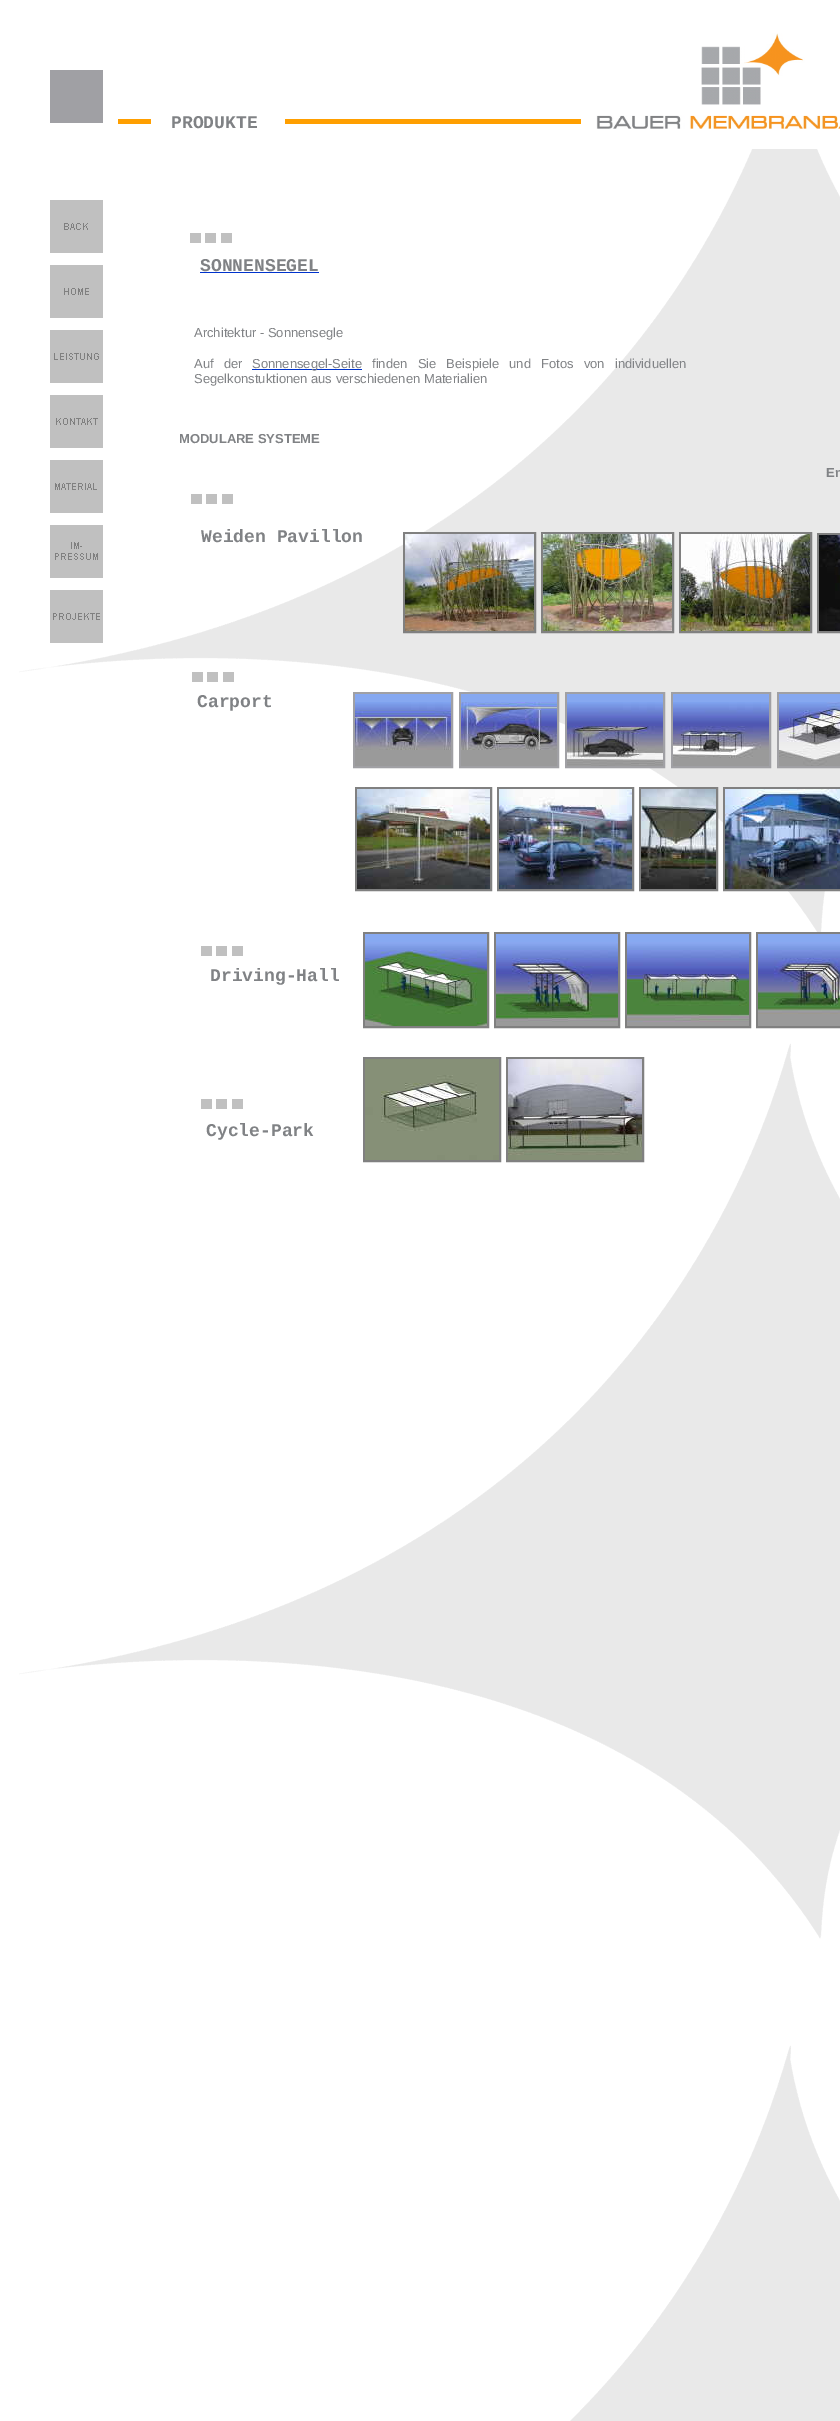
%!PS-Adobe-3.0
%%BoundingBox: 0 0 840 2421
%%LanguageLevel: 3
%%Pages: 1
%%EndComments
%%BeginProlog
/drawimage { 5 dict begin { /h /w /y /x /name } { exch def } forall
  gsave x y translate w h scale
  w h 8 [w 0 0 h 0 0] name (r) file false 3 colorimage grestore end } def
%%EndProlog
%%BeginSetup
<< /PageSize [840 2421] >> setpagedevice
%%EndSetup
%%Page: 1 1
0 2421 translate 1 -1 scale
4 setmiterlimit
1 setgray
0 0 840 2421 rectfill
(images/1.raw) 19 42 821 2379 drawimage
0.627 0.627 0.643 setrgbcolor
50 70 53 53 rectfill
1 0.624 0 setrgbcolor
118 119 33 5 rectfill
(images/2.raw) 50 200 53 53 drawimage
(images/3.raw) 50 265 53 53 drawimage
(images/4.raw) 50 330 53 53 drawimage
(images/5.raw) 50 395 53 53 drawimage
(images/6.raw) 50 460 53 53 drawimage
(images/7.raw) 50 525 53 53 drawimage
(images/8.raw) 50 590 53 53 drawimage
(images/9.raw) 596 33 244 116 drawimage
285 119 296 5 rectfill
0.753 setgray
190 233 11 10 rectfill
205 233 11 10 rectfill
221 233 11 10 rectfill
0 0.2 0.8 setrgbcolor
200 272 119 1 rectfill
252 369 110 1 rectfill
0.753 setgray
191 494 11 10 rectfill
206 494 11 10 rectfill
222 494 11 10 rectfill
0.502 setgray
403.5 532.5 132 100 rectstroke
404.5 533.5 130 98 rectstroke
(images/10.raw) 405 534 129 97 drawimage
541.5 532.5 132 100 rectstroke
542.5 533.5 130 98 rectstroke
(images/11.raw) 543 534 129 97 drawimage
679.5 532.5 132 100 rectstroke
680.5 533.5 130 98 rectstroke
(images/12.raw) 681 534 129 97 drawimage
817.5 533.5 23 99 rectstroke
818.5 534.5 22 97 rectstroke
(images/13.raw) 819 535 21 96 drawimage
0.753 setgray
192 672 11 10 rectfill
207 672 11 10 rectfill
223 672 11 10 rectfill
201 946 11 10 rectfill
216 946 11 10 rectfill
232 946 11 10 rectfill
201 1099 11 10 rectfill
216 1099 11 10 rectfill
232 1099 11 10 rectfill
0.627 0.627 0.643 setrgbcolor
353.5 692.5 99 75 rectstroke
354.5 693.5 97 73 rectstroke
(images/14.raw) 355 694 96 72 drawimage
459.5 692.5 99 75 rectstroke
460.5 693.5 97 73 rectstroke
(images/15.raw) 461 694 96 72 drawimage
565.5 692.5 99 75 rectstroke
566.5 693.5 97 73 rectstroke
(images/16.raw) 567 694 96 72 drawimage
671.5 692.5 99 75 rectstroke
672.5 693.5 97 73 rectstroke
(images/17.raw) 673 694 96 72 drawimage
777.5 692.5 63 75 rectstroke
778.5 693.5 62 73 rectstroke
(images/18.raw) 779 694 61 72 drawimage
0.502 setgray
355.5 787.5 136 103 rectstroke
356.5 788.5 134 101 rectstroke
(images/19.raw) 357 789 133 100 drawimage
497.5 787.5 136 103 rectstroke
498.5 788.5 134 101 rectstroke
(images/20.raw) 499 789 133 100 drawimage
639.5 787.5 78 103 rectstroke
640.5 788.5 76 101 rectstroke
(images/21.raw) 641 789 75 100 drawimage
723.5 787.5 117 103 rectstroke
724.5 788.5 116 101 rectstroke
(images/22.raw) 725 789 115 100 drawimage
363.5 932.5 125 95 rectstroke
364.5 933.5 123 93 rectstroke
(images/23.raw) 365 934 122 92 drawimage
494.5 932.5 125 95 rectstroke
495.5 933.5 123 93 rectstroke
(images/24.raw) 496 934 122 92 drawimage
625.5 932.5 125 95 rectstroke
626.5 933.5 123 93 rectstroke
(images/25.raw) 627 934 122 92 drawimage
756.5 932.5 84 95 rectstroke
757.5 933.5 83 93 rectstroke
(images/26.raw) 758 934 82 92 drawimage
363.5 1057.5 137 104 rectstroke
364.5 1058.5 135 102 rectstroke
(images/27.raw) 365 1059 134 101 drawimage
506.5 1057.5 137 104 rectstroke
507.5 1058.5 135 102 rectstroke
(images/28.raw) 508 1059 134 101 drawimage
/LiberationMono-Bold [18 0 0 -18 0 0] selectfont
0.502 0.51 0.522 setrgbcolor
171 128 moveto (PRODUKTE) show
200 271 moveto (SONNENSEGEL) show
/LiberationSans-Regular [13 0 0 -13 0 0] selectfont
194 337 moveto (Architektur - Sonnensegle) show
194 368 moveto 6.5 0 32 (Auf der) widthshow
252 368 moveto (Sonnensegel-Seite) show
372 368 moveto 6.5 0 32 (finden Sie Beispiele und Fotos von individuellen) widthshow
194 383 moveto (Segelkonstuktionen aus verschiedenen Materialien) show
/LiberationSans-Bold [13 0 0 -13 0 0] selectfont
179 443 moveto (MODULARE SYSTEME) show
826 477 moveto (En) show
/LiberationMono-Bold [18 0 0 -18 0 0] selectfont
201 542 moveto (Weiden Pavillon) show
197 707 moveto (Carport) show
210 981 moveto (Driving-Hall) show
206 1136 moveto (Cycle-Park) show
showpage
%%EOF
